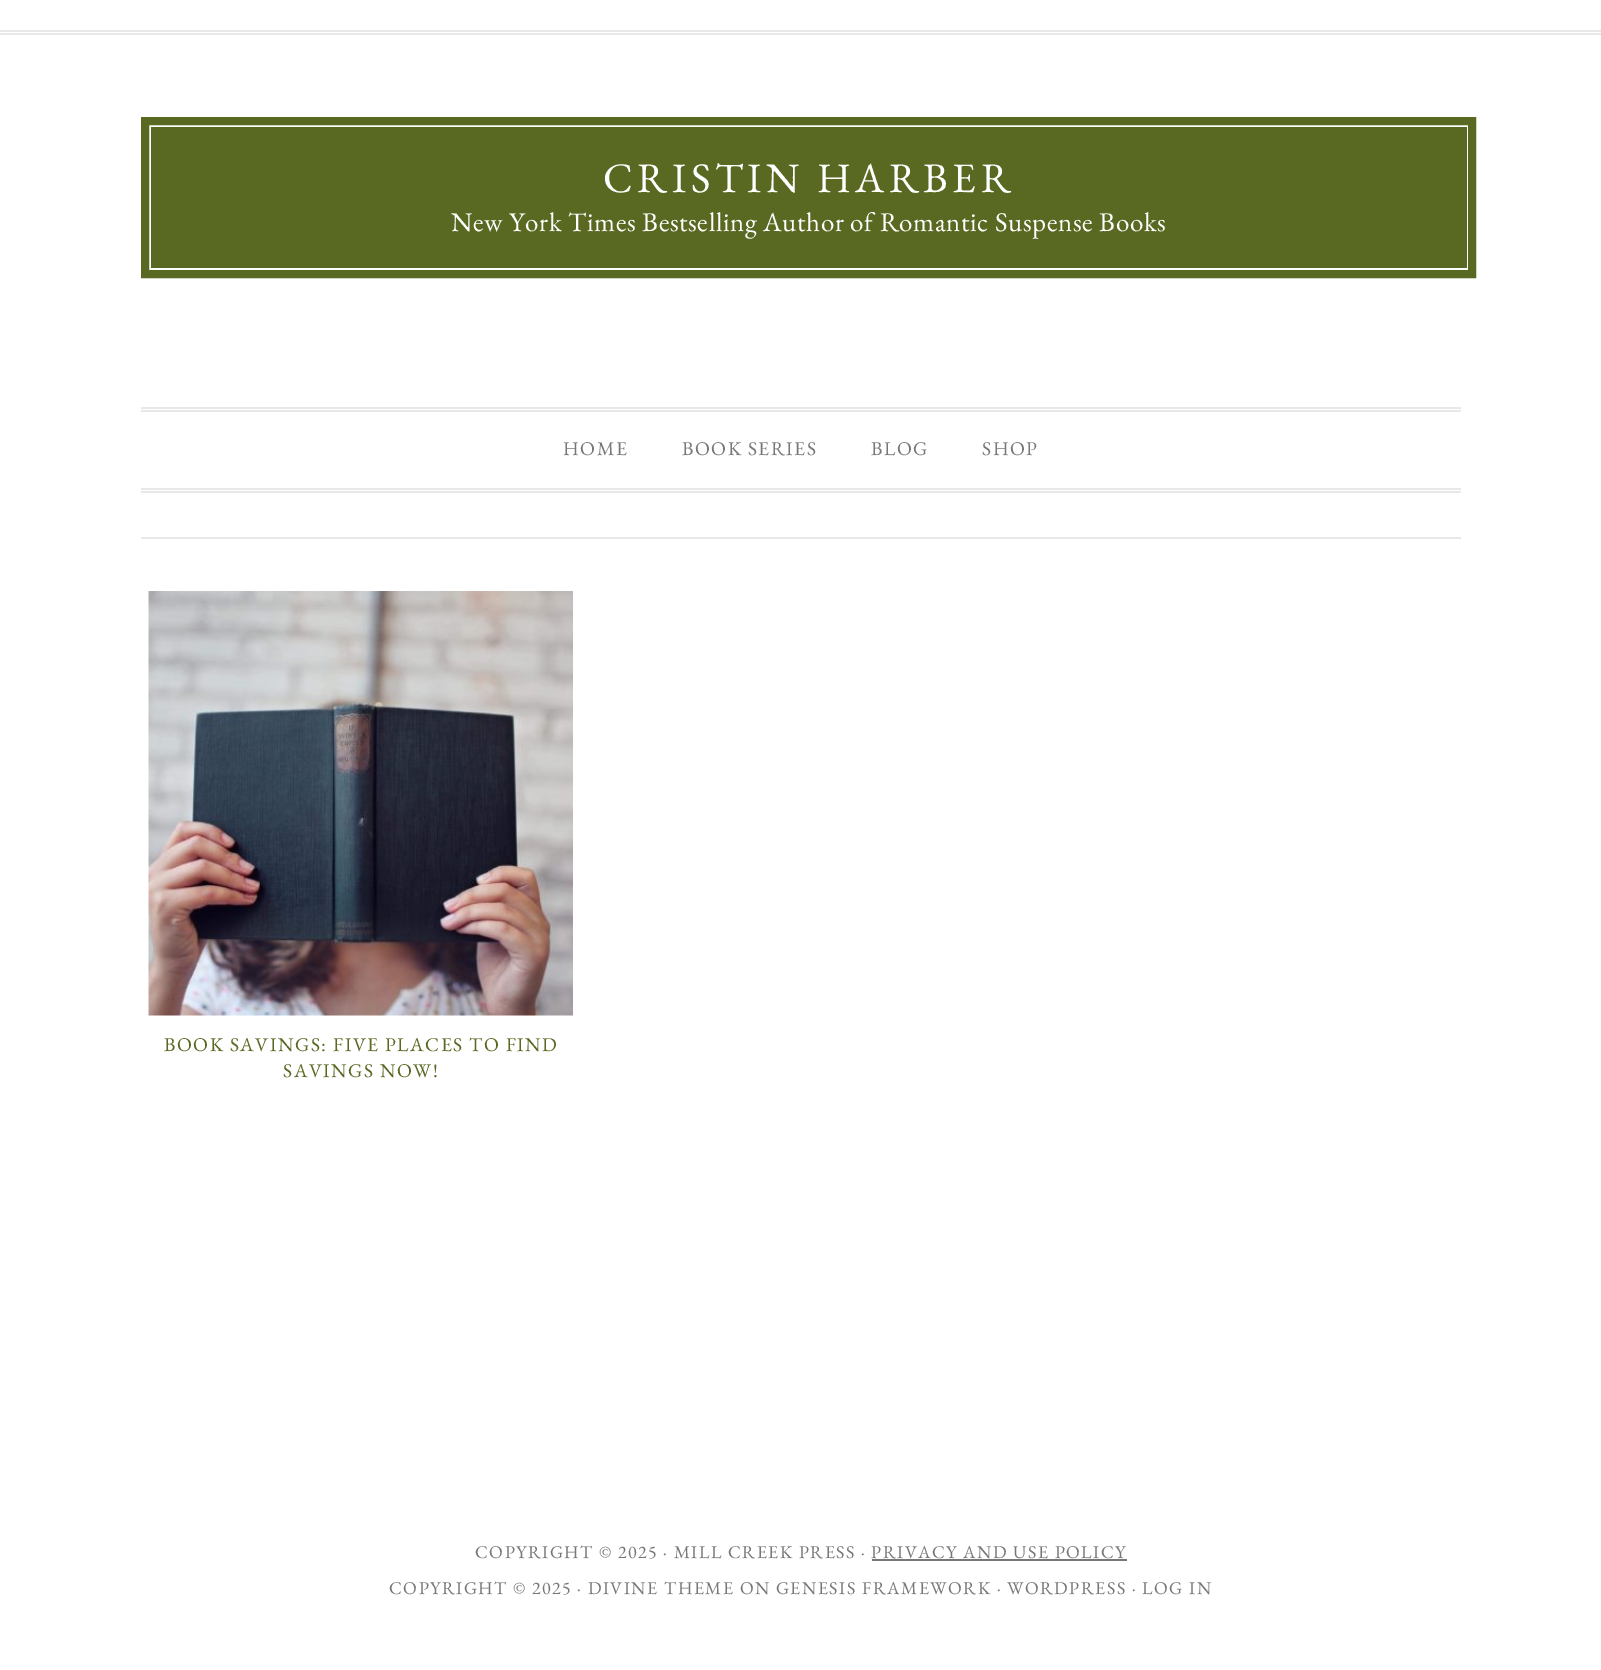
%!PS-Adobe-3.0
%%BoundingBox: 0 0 1601 1670
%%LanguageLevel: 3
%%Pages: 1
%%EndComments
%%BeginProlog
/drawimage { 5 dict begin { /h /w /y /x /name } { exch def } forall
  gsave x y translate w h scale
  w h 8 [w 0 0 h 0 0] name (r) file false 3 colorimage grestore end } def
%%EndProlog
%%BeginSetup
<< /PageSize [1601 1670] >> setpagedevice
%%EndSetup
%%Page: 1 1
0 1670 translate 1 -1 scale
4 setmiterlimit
1 setgray
0 0 1601 1670 rectfill
0.91 setgray
0 30 1601 2 rectfill
0 33 1601 2 rectfill
141 537 1320 2 rectfill
0.349 0.412 0.133 setrgbcolor
151 127 1316 141 rectfill
8 setlinewidth
145 121 1327 153 rectstroke
0.91 setgray
141 407 1320 2 rectfill
141 410 1320 2 rectfill
141 488 1320 2 rectfill
141 491 1320 2 rectfill
(images/1.raw) 148 591 425 425 drawimage
0.467 setgray
872 1559 255 2 rectfill
/EBGaramond-Regular [42 0 0 -42 0 0] selectfont
1 setgray
603 192 moveto 4.5 0 (CRISTIN HARBER) ashow
/EBGaramond-Regular [27 0 0 -27 0 0] selectfont
451 231 moveto 0.6 0 (New York Times Bestselling Author of Romantic Suspense Books) ashow
/EBGaramond-Regular [19.5 0 0 -19.5 0 0] selectfont
0.467 setgray
563 455 moveto 1.5 0 (HOME) ashow
682 455 moveto 1.5 0 (BOOK SERIES) ashow
871 455 moveto 1.5 0 (BLOG) ashow
982 455 moveto 1.5 0 (SHOP) ashow
0.349 0.412 0.133 setrgbcolor
164 1051 moveto 1.5 0 (BOOK SAVINGS: FIVE PLACES TO FIND) ashow
283 1077 moveto 1.5 0 (SAVINGS NOW!) ashow
/EBGaramond-Regular [18 0 0 -18 0 0] selectfont
0.467 setgray
475 1558 moveto 1.5 0 (COPYRIGHT © 2025 · MILL CREEK PRESS · PRIVACY AND USE POLICY) ashow
389 1594 moveto 1.5 0 (COPYRIGHT © 2025 · DIVINE THEME ON GENESIS FRAMEWORK · WORDPRESS · LOG IN) ashow
showpage
%%EOF
